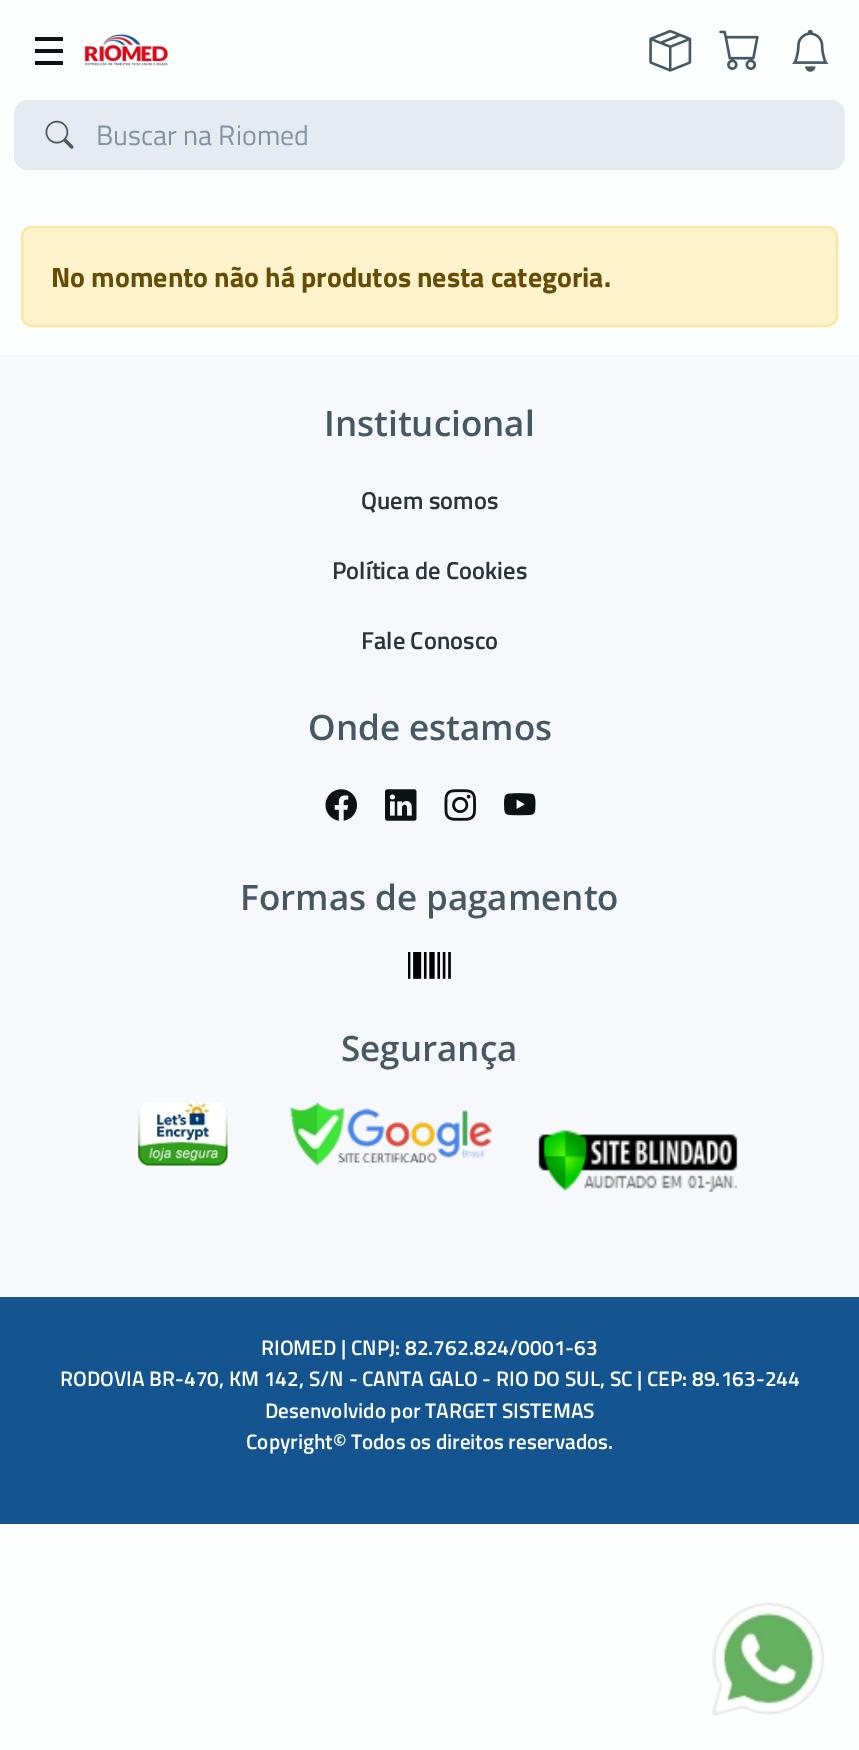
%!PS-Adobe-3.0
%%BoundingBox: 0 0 859 1750
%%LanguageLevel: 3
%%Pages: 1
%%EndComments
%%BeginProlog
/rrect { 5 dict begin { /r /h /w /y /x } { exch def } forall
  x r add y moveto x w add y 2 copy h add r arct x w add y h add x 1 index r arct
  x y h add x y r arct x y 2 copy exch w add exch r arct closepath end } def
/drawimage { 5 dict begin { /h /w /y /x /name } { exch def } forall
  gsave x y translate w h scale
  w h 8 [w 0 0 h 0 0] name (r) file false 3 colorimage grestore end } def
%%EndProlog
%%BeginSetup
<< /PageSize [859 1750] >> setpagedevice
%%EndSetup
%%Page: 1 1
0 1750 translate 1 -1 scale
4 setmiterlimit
0.992 0.996 0.996 setrgbcolor
0 0 859 1750 rectfill
0.047 0.067 0.078 setrgbcolor
35 37 28 4 rectfill
35 49 28 4 rectfill
35 61 28 4 rectfill
(images/1.raw) 84 34 84 32 drawimage
(images/2.raw) 649 29 43 43 drawimage
(images/3.raw) 719 30 40 40 drawimage
(images/4.raw) 792 29 37 43 drawimage
0.902 0.922 0.945 setrgbcolor
14 100 831 70 14 rrect fill
(images/5.raw) 45 120 29 29 drawimage
1 0.953 0.804 setrgbcolor
22 227 815 99 10 rrect gsave fill grestore
1 0.902 0.612 setrgbcolor
2 setlinewidth
stroke
0.965 0.973 0.988 setrgbcolor
0 355 859 942 rectfill
(images/6.raw) 325 789 32 32 drawimage
(images/7.raw) 385 789 32 32 drawimage
(images/8.raw) 444 789 32 32 drawimage
(images/9.raw) 504 793 32 23 drawimage
(images/10.raw) 408 952 43 27 drawimage
(images/11.raw) 138 1102 90 64 drawimage
(images/12.raw) 290 1102 202 64 drawimage
(images/13.raw) 538 1130 200 62 drawimage
0.078 0.333 0.569 setrgbcolor
0 1297 859 227 rectfill
(images/14.raw) 712 1603 113 112 drawimage
/TitilliumWeb-Regular [28 0 0 -28 0 0] selectfont
0.502 0.576 0.627 setrgbcolor
96 145 moveto (Buscar na Riomed) show
/TitilliumWeb-Bold [28 0 0 -28 0 0] selectfont
0.4 0.302 0.012 setrgbcolor
51 287 moveto (No momento não há produtos nesta categoria.) show
/OpenSans-SemiBold [35 0 0 -35 0 0] selectfont
0.278 0.345 0.396 setrgbcolor
324 436 moveto (Institucional) show
/TitilliumWeb-SemiBold [24.5 0 0 -24.5 0 0] selectfont
0.169 0.204 0.231 setrgbcolor
361 509 moveto (Quem somos) show
332 579 moveto (Política de Cookies) show
361 649 moveto (Fale Conosco) show
/OpenSans-SemiBold [35 0 0 -35 0 0] selectfont
0.278 0.345 0.396 setrgbcolor
308 740 moveto (Onde estamos) show
240 910 moveto (Formas de pagamento) show
341 1061 moveto (Segurança) show
/TitilliumWeb-SemiBold [21 0 0 -21 0 0] selectfont
0.992 0.996 0.996 setrgbcolor
261 1355 moveto (RIOMED | CNPJ: 82.762.824/0001-63) show
60 1386 moveto (RODOVIA BR-470, KM 142, S/N - CANTA GALO - RIO DO SUL, SC | CEP: 89.163-244) show
265 1418 moveto (Desenvolvido por TARGET SISTEMAS) show
246 1449 moveto (Copyright© Todos os direitos reservados.) show
showpage
%%EOF
